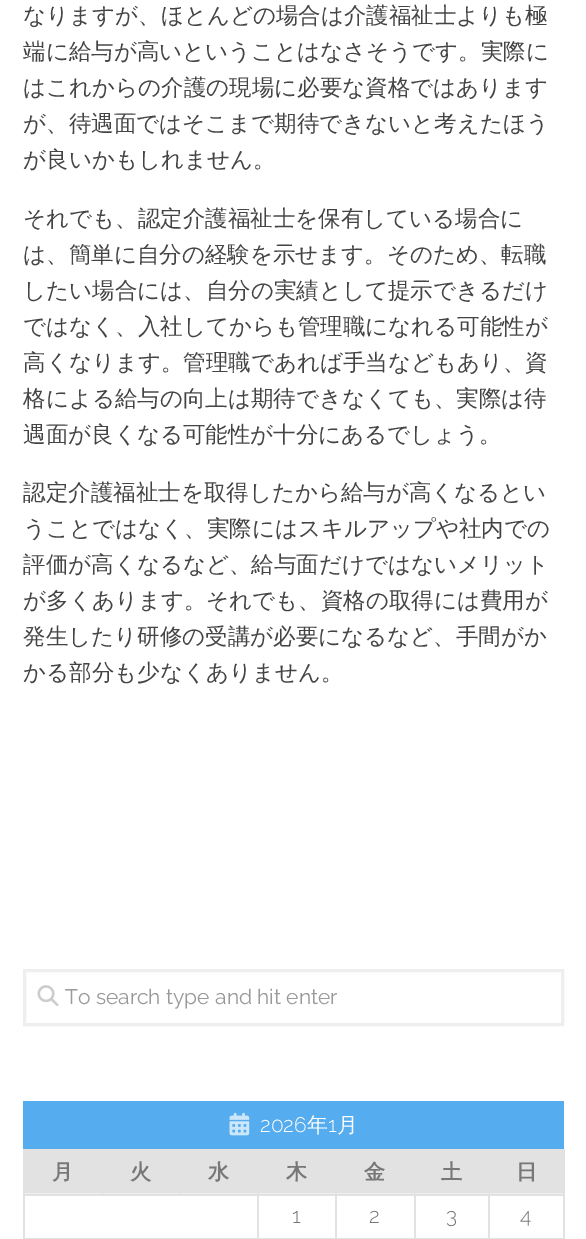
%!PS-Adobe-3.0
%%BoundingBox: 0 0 586 1239
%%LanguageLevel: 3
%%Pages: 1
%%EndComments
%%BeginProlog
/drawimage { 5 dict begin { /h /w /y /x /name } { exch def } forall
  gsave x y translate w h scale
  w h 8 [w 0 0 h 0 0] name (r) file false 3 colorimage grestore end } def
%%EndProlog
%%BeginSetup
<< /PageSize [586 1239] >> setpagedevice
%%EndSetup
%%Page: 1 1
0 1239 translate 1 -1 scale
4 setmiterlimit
1 setgray
0 0 586 1239 rectfill
0.933 setgray
3 setlinewidth
24.5 970.5 538 54 rectstroke
(images/1.raw) 37 985 22 21 drawimage
0.333 0.675 0.933 setrgbcolor
23 1101 541 48 rectfill
(images/2.raw) 229 1112 21 24 drawimage
0.886 setgray
25 1151 538 42 rectfill
0.933 setgray
24 1193 540 1 rectfill
0.886 setgray
23 1149 541 2 rectfill
488 1194 76 2 rectfill
23 1238 541 1 rectfill
488 1194 2 45 rectfill
414 1194 75 2 rectfill
414 1194 2 45 rectfill
335 1194 81 2 rectfill
335 1194 2 45 rectfill
257 1194 79 2 rectfill
257 1194 2 45 rectfill
23 1194 235 2 rectfill
23 1194 2 45 rectfill
23 1149 2 47 rectfill
101 1193 2 3 rectfill
180 1193 2 3 rectfill
257 1193 2 3 rectfill
335 1193 2 3 rectfill
414 1193 2 3 rectfill
563 1194 2 45 rectfill
563 1149 2 47 rectfill
488 1193 2 3 rectfill
/WenQuanYiZenHei-Medium [22.5 0 0 -22.5 0 0] selectfont
0.267 setgray
23 23 moveto (なりますが、ほとんどの場合は介護福祉士よりも極) show
23 59 moveto (端に給与が高いということはなさそうです。実際に) show
23 95 moveto (はこれからの介護の現場に必要な資格ではあります) show
23 131 moveto (が、待遇面ではそこまで期待できないと考えたほう) show
23 167 moveto (が良いかもしれません。) show
23 226 moveto (それでも、認定介護福祉士を保有している場合に) show
23 262 moveto (は、簡単に自分の経験を示せます。そのため、転職) show
23 298 moveto (したい場合には、自分の実績として提示できるだけ) show
23 334 moveto (ではなく、入社してからも管理職になれる可能性が) show
23 370 moveto (高くなります。管理職であれば手当などもあり、資) show
23 406 moveto (格による給与の向上は期待できなくても、実際は待) show
23 442 moveto (遇面が良くなる可能性が十分にあるでしょう。) show
23 500 moveto (認定介護福祉士を取得したから給与が高くなるとい) show
23 536 moveto (うことではなく、実際にはスキルアップや社内での) show
23 572 moveto (評価が高くなるなど、給与面だけではないメリット) show
23 608 moveto (が多くあります。それでも、資格の取得には費用が) show
23 644 moveto (発生したり研修の受講が必要になるなど、手間がか) show
23 680 moveto (かる部分も少なくありません。) show
/Raleway-Regular [21 0 0 -21 0 0] selectfont
0.6 setgray
65 1004 moveto (To search type and hit enter) show
/Raleway-Light [21 0 0 -21 0 0] selectfont
1 setgray
260 1132 moveto (2026) show
/WenQuanYiZenHei-Medium [21 0 0 -21 0 0] selectfont
307 1132 moveto (年) show
/Raleway-Light [21 0 0 -21 0 0] selectfont
328 1132 moveto (1) show
/WenQuanYiZenHei-Medium [21 0 0 -21 0 0] selectfont
337 1132 moveto (月) show
/WenQuanYiZenHei-Bold [21 0 0 -21 0 0] selectfont
0.467 setgray
52 1179 moveto (月) show
130 1179 moveto (火) show
208 1179 moveto (水) show
286 1179 moveto (木) show
364 1179 moveto (金) show
441 1179 moveto (土) show
516 1179 moveto (日) show
/Raleway-Light [21 0 0 -21 0 0] selectfont
292 1223 moveto (1) show
369 1223 moveto (2) show
446 1223 moveto (3) show
520 1223 moveto (4) show
showpage
%%EOF
